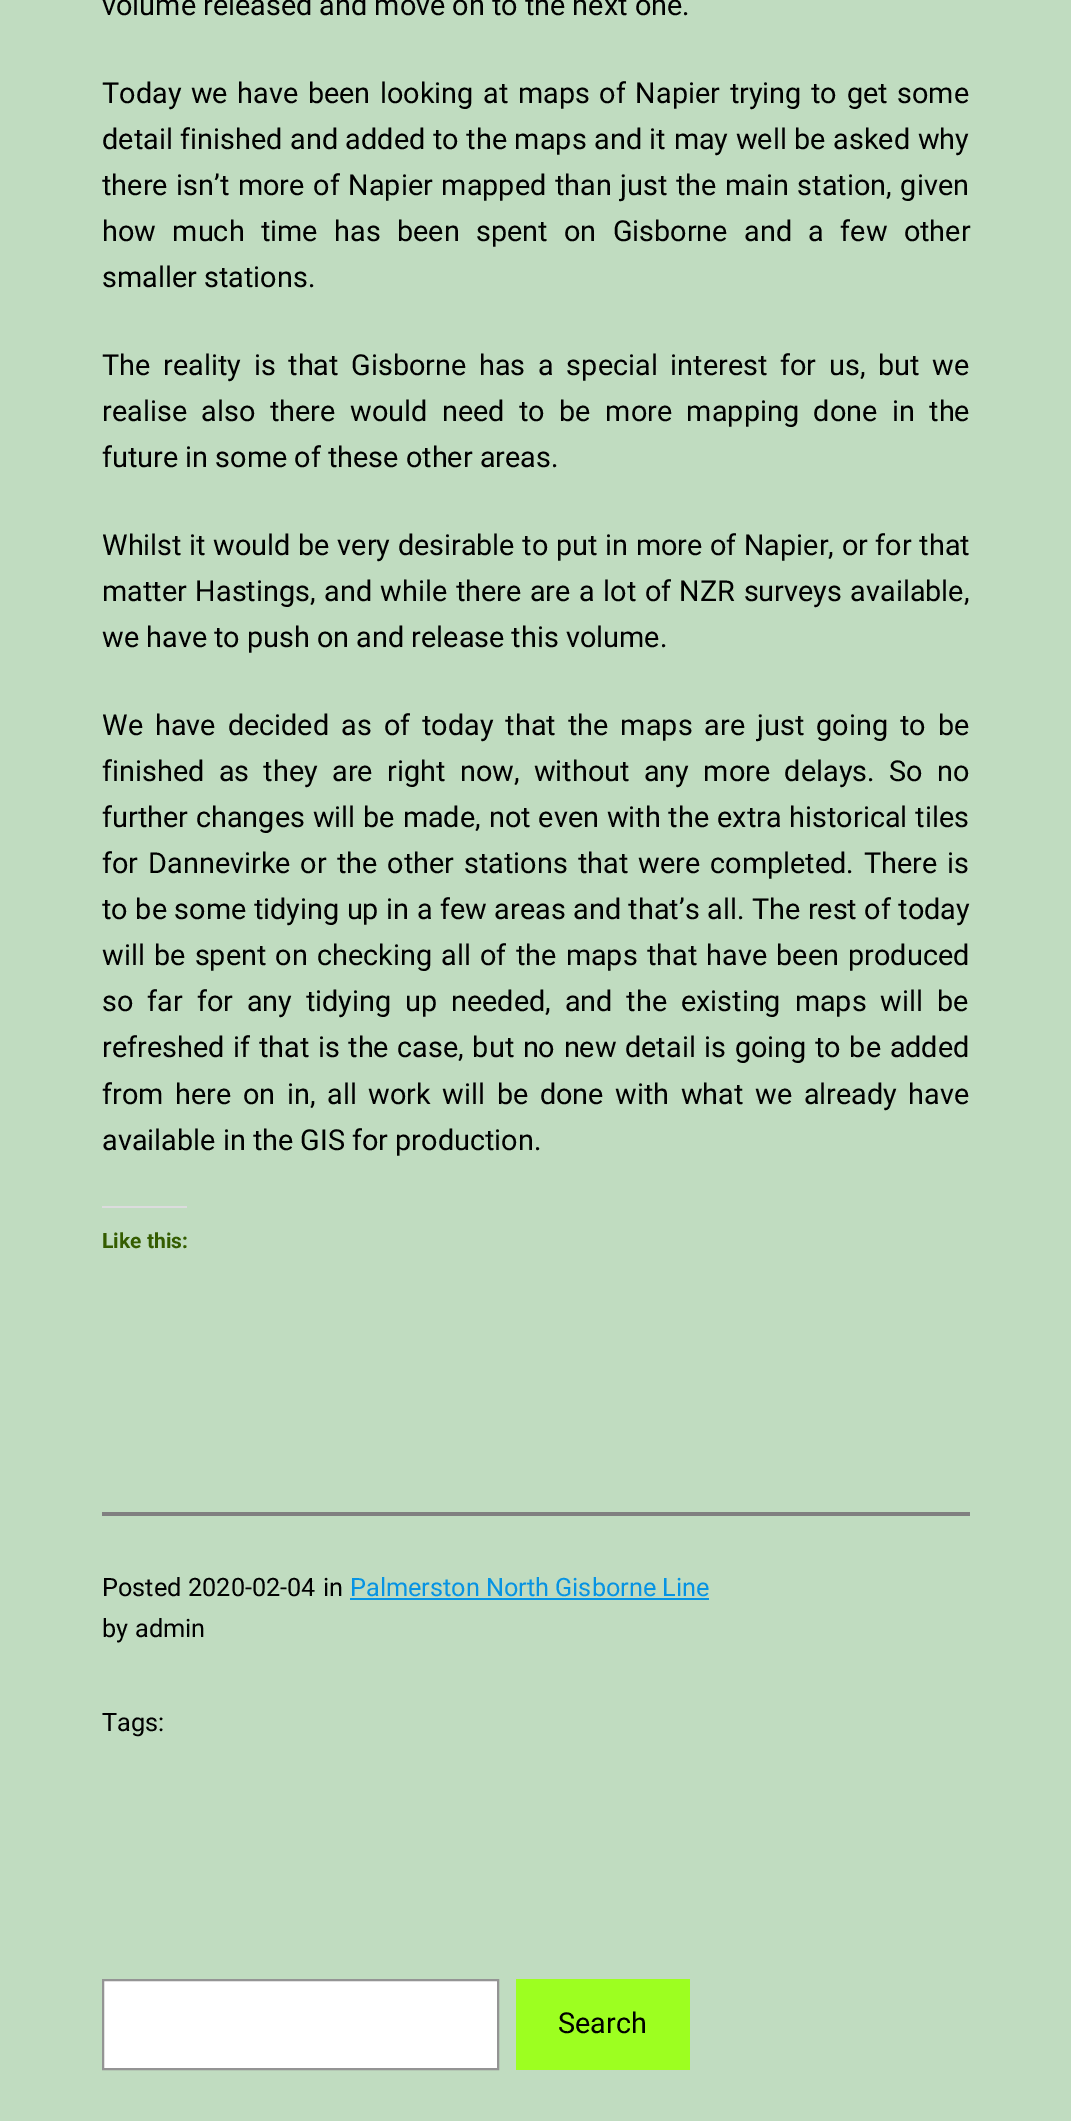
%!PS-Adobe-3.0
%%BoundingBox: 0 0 1071 2121
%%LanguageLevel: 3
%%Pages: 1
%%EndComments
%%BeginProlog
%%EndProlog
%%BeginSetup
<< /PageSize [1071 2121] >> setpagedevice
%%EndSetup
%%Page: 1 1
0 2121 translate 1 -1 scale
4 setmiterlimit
0.753 0.863 0.753 setrgbcolor
0 0 1071 2121 rectfill
0.863 0.863 0.871 setrgbcolor
102 1206 85 2 rectfill
0.502 setgray
102 1512 868 4 rectfill
0.024 0.576 0.89 setrgbcolor
350 1598 359 2 rectfill
1 setgray
newpath 103 1980 moveto 498 1980 lineto 498 2069 lineto 103 2069 lineto closepath gsave fill grestore
0.58 setgray
2 setlinewidth
stroke
0.616 1 0.125 setrgbcolor
516 1979 174 91 rectfill
/Roboto-Regular [28.8 0 0 -28.8 0 0] selectfont
0 setgray
102 15 moveto (volume released and move on to the next one.) show
102 103 moveto 2.5 0 32 (Today we have been looking at maps of Napier trying to get some) widthshow
102 149 moveto 0.5 0 32 (detail finished and added to the maps and it may well be asked why) widthshow
102 195 moveto 1.5 0 32 (there isn’t more of Napier mapped than just the main station, given) widthshow
102 241 moveto 9.25 0 32 (how much time has been spent on Gisborne and a few other) widthshow
102 287 moveto (smaller stations.) show
102 375 moveto 5.6 0 32 (The reality is that Gisborne has a special interest for us, but we) widthshow
102 421 moveto 7.4 0 32 (realise also there would need to be more mapping done in the) widthshow
102 467 moveto (future in some of these other areas.) show
102 555 moveto 0.5 0 32 (Whilst it would be very desirable to put in more of Napier, or for that) widthshow
102 601 moveto 1.4 0 32 (matter Hastings, and while there are a lot of NZR surveys available,) widthshow
102 647 moveto (we have to push on and release this volume.) show
102 735 moveto 4.9 0 32 (We have decided as of today that the maps are just going to be) widthshow
102 781 moveto 7.25 0 32 (finished as they are right now, without any more delays. So no) widthshow
102 827 moveto 0.8 0 32 (further changes will be made, not even with the extra historical tiles) widthshow
102 873 moveto 2.9 0 32 (for Dannevirke or the other stations that were completed. There is) widthshow
102 919 moveto 0.4 0 32 (to be some tidying up in a few areas and that’s all. The rest of today) widthshow
102 965 moveto 2.1 0 32 (will be spent on checking all of the maps that have been produced) widthshow
102 1011 moveto 6.75 0 32 (so far for any tidying up needed, and the existing maps will be) widthshow
102 1057 moveto 1.5 0 32 (refreshed if that is the case, but no new detail is going to be added) widthshow
102 1104 moveto 4.5 0 32 (from here on in, all work will be done with what we already have) widthshow
102 1150 moveto (available in the GIS for production.) show
/Roboto-Bold [21 0 0 -21 0 0] selectfont
0.204 0.361 0 setrgbcolor
102 1248 moveto (Like this:) show
/Roboto-Regular [25.25 0 0 -25.25 0 0] selectfont
0 setgray
102 1596 moveto (Posted) show
188 1596 moveto (2020-02-04) show
323 1596 moveto (in) show
0.024 0.576 0.89 setrgbcolor
350 1596 moveto (Palmerston North Gisborne Line) show
0 setgray
102 1637 moveto (by) show
135 1637 moveto (admin) show
102 1731 moveto (Tags:) show
/Roboto-Regular [28.8 0 0 -28.8 0 0] selectfont
558 2033 moveto (Search) show
showpage
%%EOF
